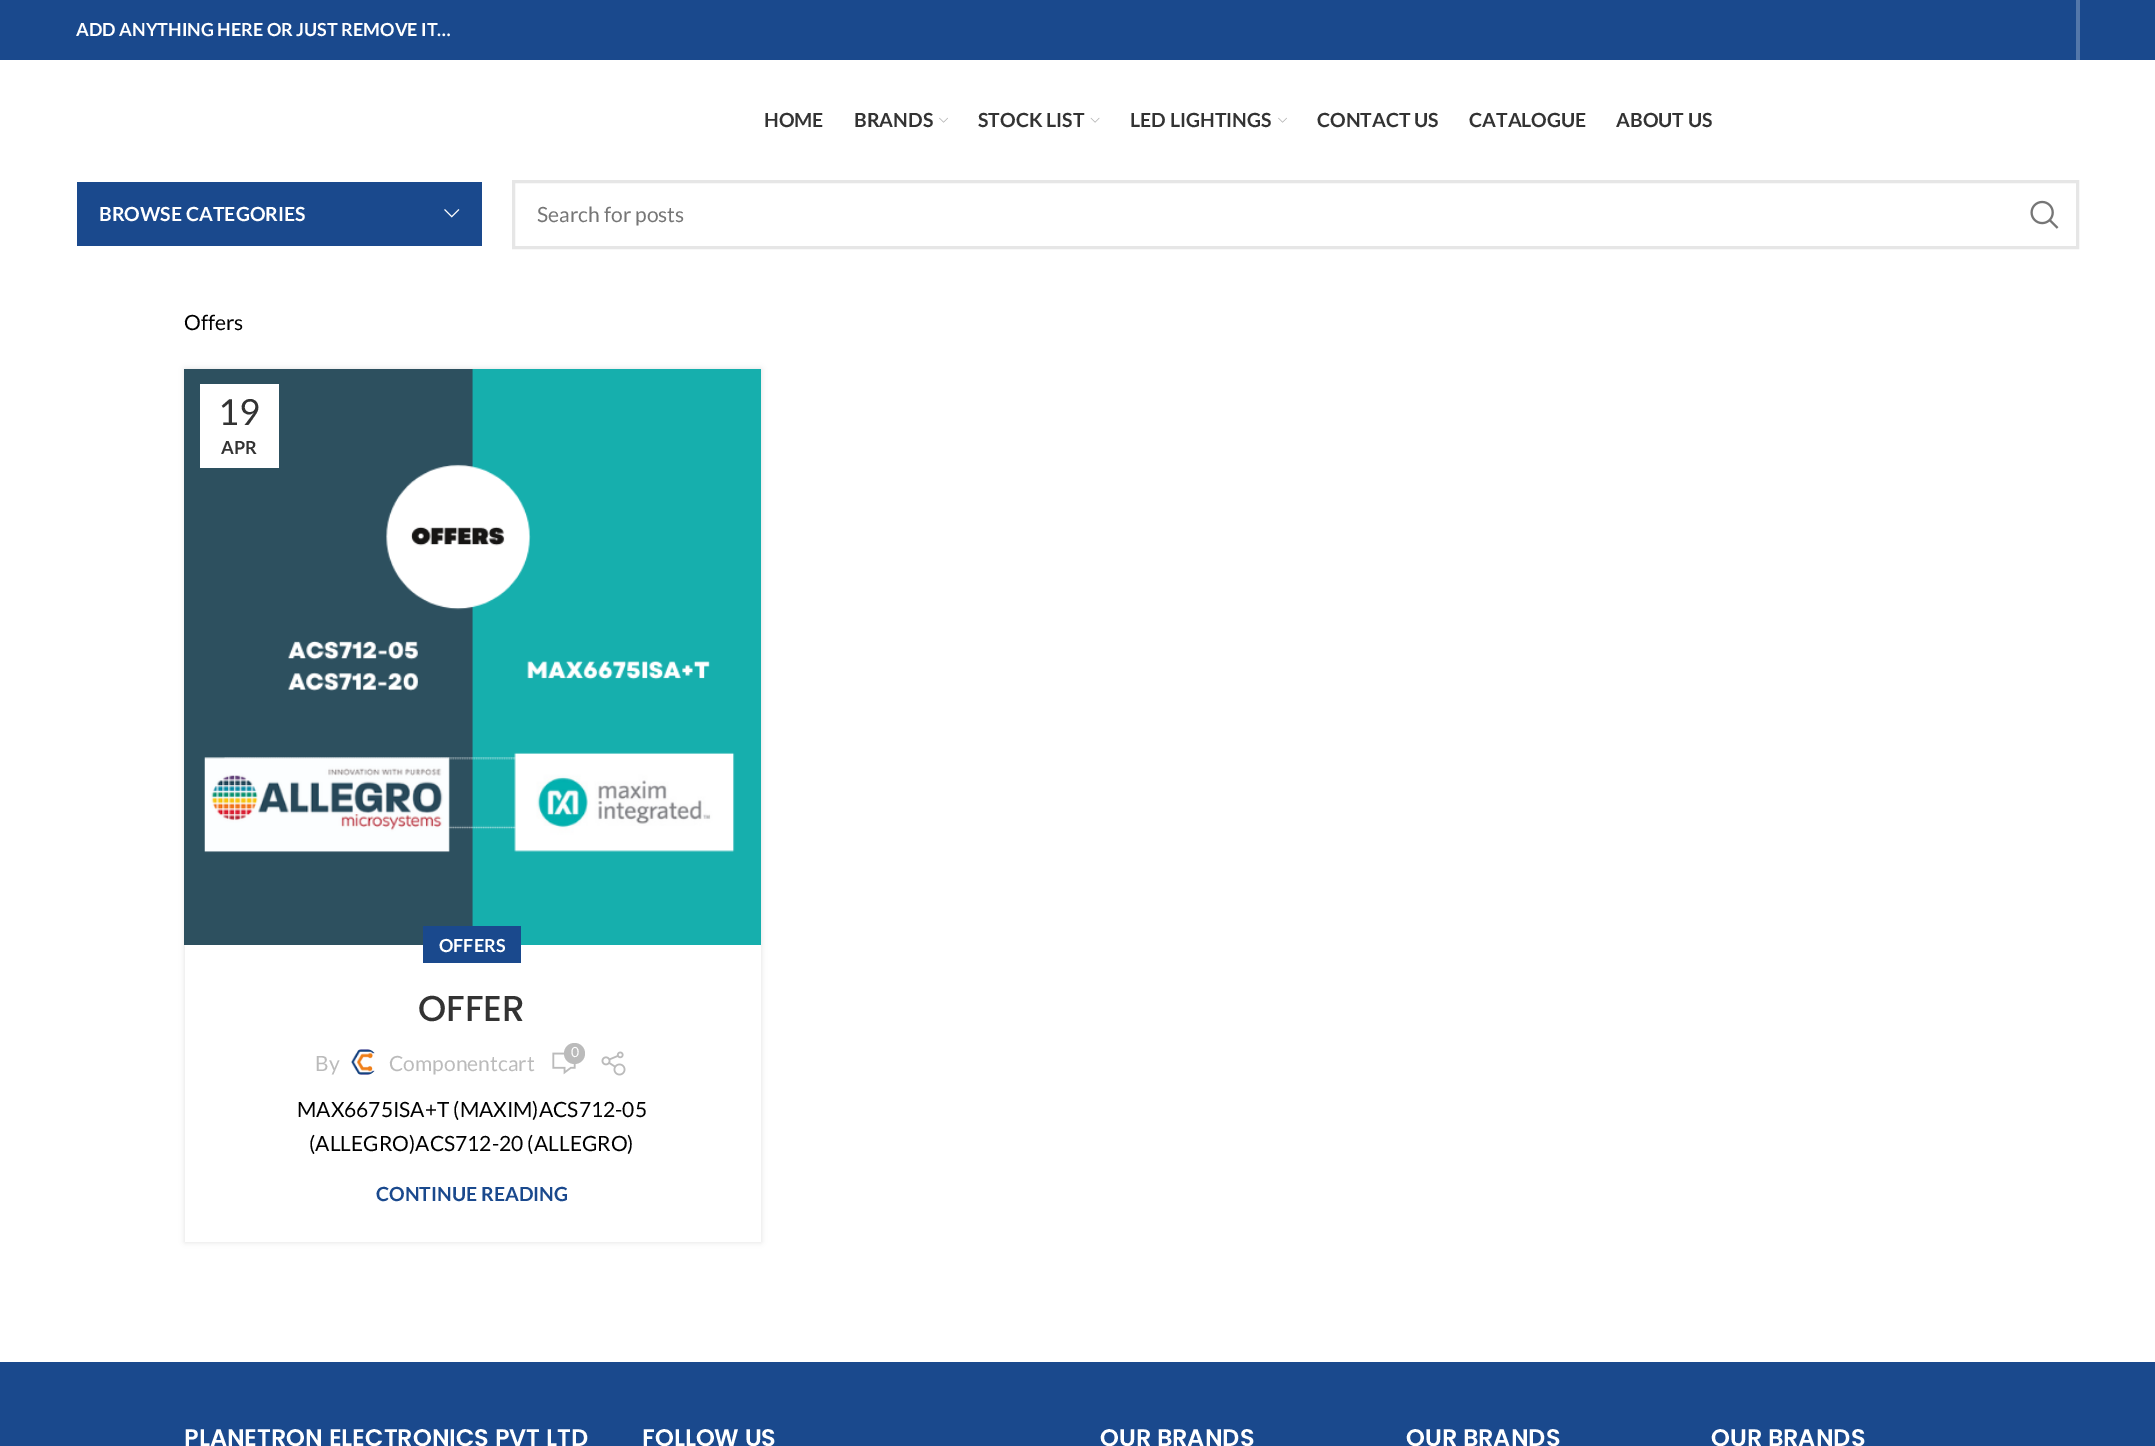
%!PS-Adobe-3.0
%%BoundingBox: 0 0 2155 1446
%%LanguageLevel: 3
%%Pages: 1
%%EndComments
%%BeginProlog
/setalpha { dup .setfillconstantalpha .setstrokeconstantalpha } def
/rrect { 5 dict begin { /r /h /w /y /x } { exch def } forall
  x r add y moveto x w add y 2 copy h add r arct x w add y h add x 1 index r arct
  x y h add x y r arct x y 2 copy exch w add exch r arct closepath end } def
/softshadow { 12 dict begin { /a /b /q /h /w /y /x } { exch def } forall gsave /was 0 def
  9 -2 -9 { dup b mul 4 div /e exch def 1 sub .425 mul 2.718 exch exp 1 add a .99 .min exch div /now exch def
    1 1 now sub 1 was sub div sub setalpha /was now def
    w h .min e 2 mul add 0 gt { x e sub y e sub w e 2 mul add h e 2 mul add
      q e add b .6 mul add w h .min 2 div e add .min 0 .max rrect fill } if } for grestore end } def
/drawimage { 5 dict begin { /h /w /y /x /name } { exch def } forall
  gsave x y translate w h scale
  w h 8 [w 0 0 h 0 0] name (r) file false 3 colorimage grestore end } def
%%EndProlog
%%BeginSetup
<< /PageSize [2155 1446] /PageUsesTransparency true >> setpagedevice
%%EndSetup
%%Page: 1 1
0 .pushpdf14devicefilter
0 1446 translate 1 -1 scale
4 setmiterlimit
1 setgray
0 0 2155 1446 rectfill
0.102 0.286 0.553 setrgbcolor
0 0 2155 60 rectfill
0.325 0.467 0.667 setrgbcolor
2076 0 4 60 rectfill
(images/1.raw) 939 117 9 6 drawimage
(images/2.raw) 1090 117 10 6 drawimage
(images/1.raw) 1278 117 9 6 drawimage
0.102 0.286 0.553 setrgbcolor
77 182 405 64 rectfill
(images/3.raw) 444 209 16 9 drawimage
0.902 setgray
3 setlinewidth
513.5 181.5 1564 66 rectstroke
(images/4.raw) 2030 200 29 29 drawimage
0 setgray
185 369 576 873 0 3 0.12 softshadow
(images/5.raw) 184 369 577 576 drawimage
1 setgray
200 384 79 84 rectfill
185 945 576 297 rectfill
0.102 0.286 0.553 setrgbcolor
423 926 98 37 rectfill
(images/6.raw) 552 1052 24 23 drawimage
0.733 setgray
newpath 574.5 1053.5 10.5 0 360 arc closepath fill
(images/7.raw) 351 1049 24 26 drawimage
(images/8.raw) 601 1051 25 25 drawimage
0.102 0.286 0.553 setrgbcolor
0 1362 2155 84 rectfill
/Lato-Bold [18 0 0 -18 0 0] selectfont
1 setgray
76 36 moveto (ADD ANYTHING HERE OR JUST REMOVE IT…) show
/Lato-Bold [19.5 0 0 -19.5 0 0] selectfont
0.2 setgray
764 127 moveto (HOME) show
854 127 moveto (BRANDS) show
978 127 moveto (STOCK LIST) show
1130 127 moveto (LED LIGHTINGS) show
1317 127 moveto (CONTACT US) show
1469 127 moveto (CATALOGUE) show
1616 127 moveto (ABOUT US) show
1 setgray
99 221 moveto (BROWSE CATEGORIES) show
/Lato-Regular [21 0 0 -21 0 0] selectfont
0.463 setgray
537 222 moveto (Search for posts) show
0 setgray
184 330 moveto (Offers) show
/Lato-Regular [36 0 0 -36 0 0] selectfont
0.2 setgray
218 425 moveto (19) show
/Lato-Bold [18 0 0 -18 0 0] selectfont
221 454 moveto (APR) show
1 setgray
439 952 moveto (OFFERS) show
/Poppins-Medium [36 0 0 -36 0 0] selectfont
0.2 setgray
418 1021 moveto (OFFER) show
/Lato-Regular [14 0 0 -14 0 0] selectfont
1 setgray
571 1057 moveto (0) show
/Lato-Regular [21 0 0 -21 0 0] selectfont
0.733 setgray
315 1071 moveto (By) show
389 1071 moveto (Componentcart) show
0 setgray
297 1117 moveto (MAX6675ISA+T \(MAXIM\)ACS712-05) show
309 1151 moveto (\(ALLEGRO\)ACS712-20 \(ALLEGRO\)) show
/Lato-Bold [19.5 0 0 -19.5 0 0] selectfont
0.102 0.286 0.553 setrgbcolor
376 1201 moveto (CONTINUE READING) show
/Poppins-SemiBold [24 0 0 -24 0 0] selectfont
1 setgray
184 1446 moveto (PLANETRON ELECTRONICS PVT LTD) show
642 1446 moveto (FOLLOW US) show
1100 1446 moveto (OUR BRANDS) show
1406 1446 moveto (OUR BRANDS) show
1711 1446 moveto (OUR BRANDS) show
.poppdf14devicefilter showpage
%%EOF
